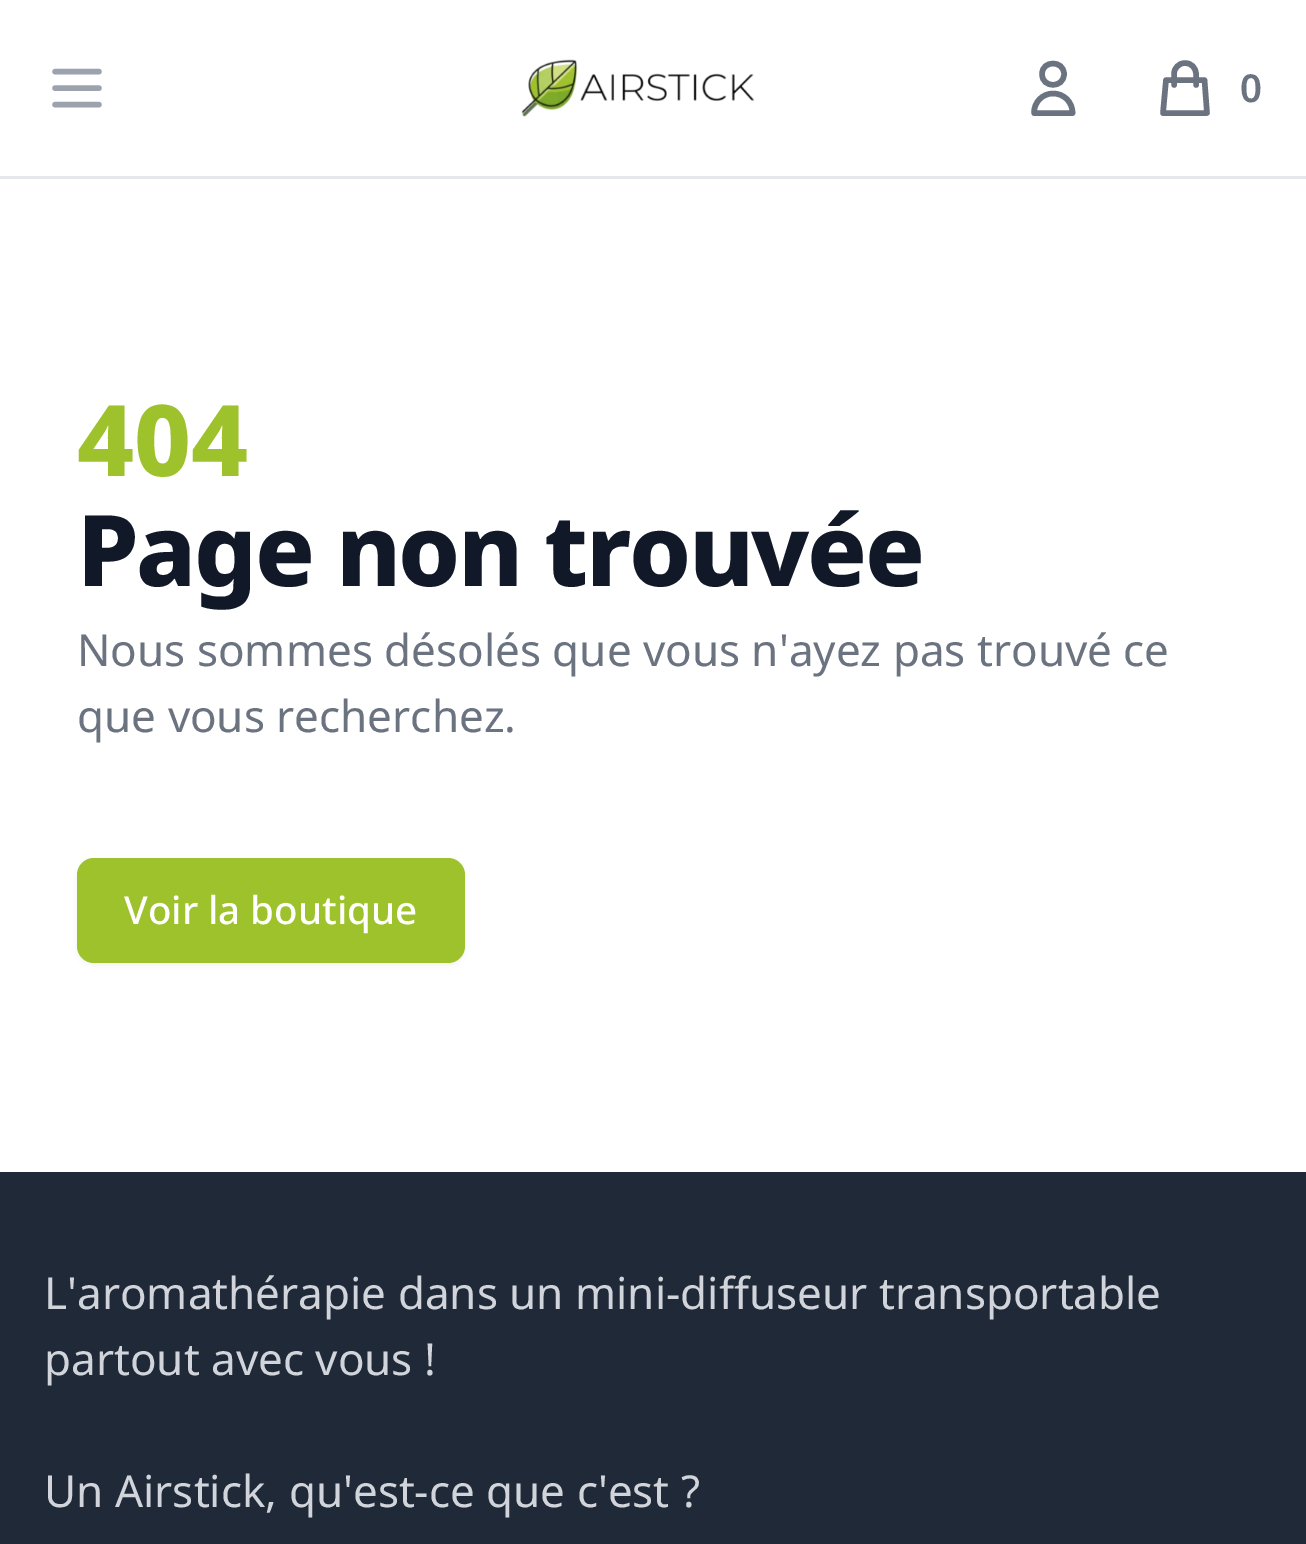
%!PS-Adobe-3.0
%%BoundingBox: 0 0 1306 1544
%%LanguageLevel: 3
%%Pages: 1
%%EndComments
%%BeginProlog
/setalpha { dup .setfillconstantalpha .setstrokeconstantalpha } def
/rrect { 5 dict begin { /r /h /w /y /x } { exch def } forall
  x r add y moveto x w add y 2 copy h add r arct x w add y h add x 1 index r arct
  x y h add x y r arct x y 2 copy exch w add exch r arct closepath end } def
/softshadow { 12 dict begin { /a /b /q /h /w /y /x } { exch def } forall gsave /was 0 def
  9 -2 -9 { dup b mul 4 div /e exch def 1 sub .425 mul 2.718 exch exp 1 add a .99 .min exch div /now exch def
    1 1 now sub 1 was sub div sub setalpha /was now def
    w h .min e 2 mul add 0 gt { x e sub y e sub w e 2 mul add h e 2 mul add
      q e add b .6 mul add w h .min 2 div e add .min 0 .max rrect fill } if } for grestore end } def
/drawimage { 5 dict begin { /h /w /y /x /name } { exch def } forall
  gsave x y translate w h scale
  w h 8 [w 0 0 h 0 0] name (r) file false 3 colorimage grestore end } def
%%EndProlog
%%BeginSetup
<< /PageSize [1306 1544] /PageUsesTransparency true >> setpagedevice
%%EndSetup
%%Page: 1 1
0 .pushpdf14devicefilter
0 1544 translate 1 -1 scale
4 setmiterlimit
1 setgray
0 0 1306 1544 rectfill
0.898 0.906 0.922 setrgbcolor
0 176 1306 3 rectfill
0.612 0.639 0.686 setrgbcolor
5.5 setlinewidth
1 setlinecap
1 setlinejoin
newpath 55 71.5 moveto 99 71.5 lineto 55 88 moveto 99 88 lineto 55 104.5 moveto 99 104.5 lineto stroke
(images/1.raw) 521 59 234 58 drawimage
0.42 0.447 0.502 setrgbcolor
newpath 1064 74 moveto 1064 88.5 1042 88.5 1042 74 curveto 1042 60 1064 60 1064 74 curveto closepath 1053 93.5 moveto 1042.5 93.5 1034 102 1034 113 curveto 1072.5 113 lineto 1072.5 102 1064 93.5 1053 93.5 curveto closepath stroke
newpath 1196 85 moveto 1196 74 lineto 1196 68 1191.5 63 1185 63 curveto 1179 63 1174 68 1174 74 curveto 1174 85 lineto 1166 80 moveto 1204.5 80 lineto 1207 113 lineto 1163 113 lineto closepath stroke
0 setgray
77 861 388 104 17 3 0.05 softshadow
0.616 0.761 0.173 setrgbcolor
77 858 388 105 17 rrect fill
0.122 0.161 0.216 setrgbcolor
0 1172 1306 372 rectfill
/NotoSans-SemiBold [38.5 0 0 -38.5 0 0] selectfont
0.42 0.447 0.502 setrgbcolor
1240 102 moveto (0) show
/NotoSans-ExtraBold [99 0 0 -99 0 0] selectfont
0.616 0.761 0.173 setrgbcolor
77 476 moveto (404) show
0.067 0.094 0.153 setrgbcolor
77 586 moveto -2.5 0 (Page non trouvée) ashow
/NotoSans-Regular [44 0 0 -44 0 0] selectfont
0.42 0.447 0.502 setrgbcolor
77 666 moveto (Nous sommes désolés que vous n'ayez pas trouvé ce) show
77 732 moveto (que vous recherchez.) show
/NotoSans-Medium [38.5 0 0 -38.5 0 0] selectfont
1 setgray
124 924 moveto (Voir la boutique) show
/NotoSans-Regular [44 0 0 -44 0 0] selectfont
0.82 0.835 0.859 setrgbcolor
44 1309 moveto (L'aromathérapie dans un mini-diffuseur transportable) show
44 1375 moveto (partout avec vous !) show
44 1507 moveto (Un Airstick, qu'est-ce que c'est ?) show
.poppdf14devicefilter showpage
%%EOF
